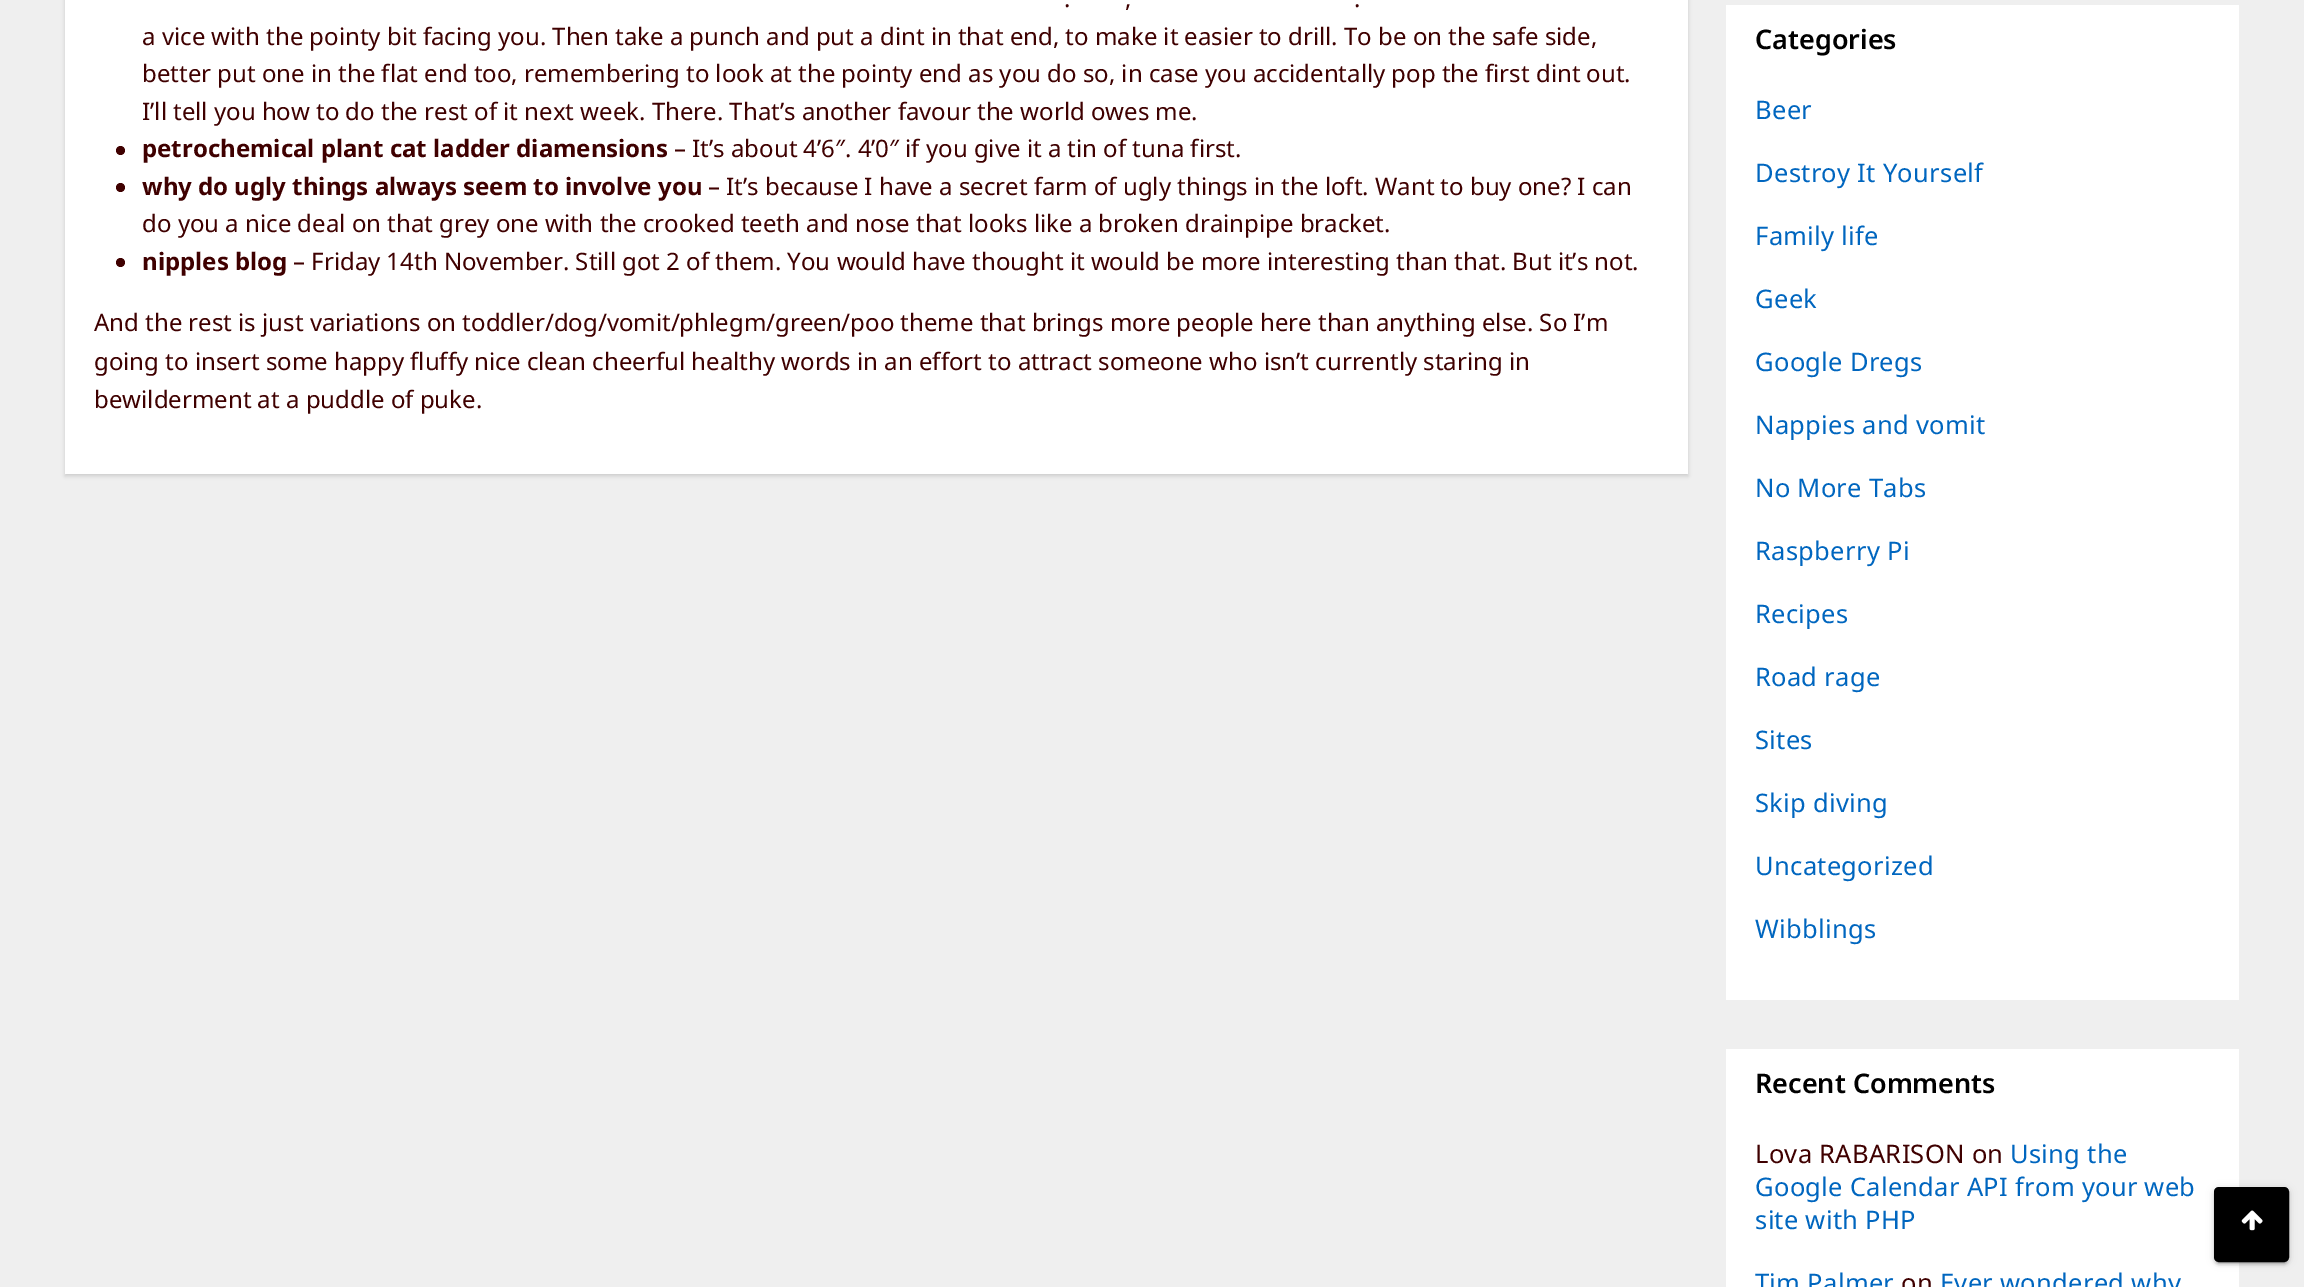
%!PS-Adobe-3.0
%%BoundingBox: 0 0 2304 1287
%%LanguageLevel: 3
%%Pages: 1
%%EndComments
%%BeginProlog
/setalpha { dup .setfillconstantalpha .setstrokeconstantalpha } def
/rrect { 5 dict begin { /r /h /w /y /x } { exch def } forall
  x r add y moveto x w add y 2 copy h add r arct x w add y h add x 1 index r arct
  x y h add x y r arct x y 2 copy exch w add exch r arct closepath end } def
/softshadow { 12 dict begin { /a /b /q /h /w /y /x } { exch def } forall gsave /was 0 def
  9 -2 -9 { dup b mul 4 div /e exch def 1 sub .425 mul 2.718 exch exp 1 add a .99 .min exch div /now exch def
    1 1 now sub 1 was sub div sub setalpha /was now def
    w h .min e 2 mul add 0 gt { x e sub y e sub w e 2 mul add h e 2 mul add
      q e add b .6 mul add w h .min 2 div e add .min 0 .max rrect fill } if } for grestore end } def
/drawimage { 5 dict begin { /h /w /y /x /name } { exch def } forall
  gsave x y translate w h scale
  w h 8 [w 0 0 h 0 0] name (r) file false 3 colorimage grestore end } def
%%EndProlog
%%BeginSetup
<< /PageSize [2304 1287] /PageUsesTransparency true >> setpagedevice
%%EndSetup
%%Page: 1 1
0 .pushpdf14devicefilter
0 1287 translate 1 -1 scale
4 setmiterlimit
0.937 setgray
0 0 2304 1287 rectfill
0 setgray
65 -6 1623 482 0 2 0.15 softshadow
1 setgray
65 0 1623 474 rectfill
0.247 0 0 setrgbcolor
newpath 120.5 150.5 4.5 0 360 arc closepath fill
newpath 120.5 187.5 4.5 0 360 arc closepath fill
newpath 120.5 262.5 4.5 0 360 arc closepath fill
1 setgray
1726 5 513 995 rectfill
1726 1049 513 238 rectfill
0 setgray
2214 1188 75 75 5 4 0.12 softshadow
2217 1194 69 69 1.5 1 0.2 softshadow
2214 1190 75 75 5 1.5 0.14 softshadow
2215.5 1188.5 72 72 3.5 rrect gsave fill grestore
3 setlinewidth
stroke
(images/1.raw) 2241 1210 22 21 drawimage
/NotoSans-Regular [24 0 0 -24 0 0] selectfont
0.247 0 0 setrgbcolor
1064 7 moveto (.) show
1125 7 moveto (,) show
1354 7 moveto (.) show
142 45 moveto (a vice with the pointy bit facing you. Then take a punch and put a dint in that end, to make it easier to drill. To be on the safe side,) show
142 82 moveto (better put one in the flat end too, remembering to look at the pointy end as you do so, in case you accidentally pop the first dint out.) show
142 120 moveto (I’ll tell you how to do the rest of it next week. There. That’s another favour the world owes me.) show
/NotoSans-Bold [24 0 0 -24 0 0] selectfont
142 157 moveto (petrochemical plant cat ladder diamensions) show
/NotoSans-Regular [24 0 0 -24 0 0] selectfont
674 157 moveto (– It’s about 4’6″. 4’0″ if you give it a tin of tuna first.) show
/NotoSans-Bold [24 0 0 -24 0 0] selectfont
142 195 moveto (why do ugly things always seem to involve you) show
/NotoSans-Regular [24 0 0 -24 0 0] selectfont
708 195 moveto (– It’s because I have a secret farm of ugly things in the loft. Want to buy one? I can) show
142 232 moveto (do you a nice deal on that grey one with the crooked teeth and nose that looks like a broken drainpipe bracket.) show
/NotoSans-Bold [24 0 0 -24 0 0] selectfont
142 270 moveto (nipples blog) show
/NotoSans-Regular [24 0 0 -24 0 0] selectfont
293 270 moveto (– Friday 14th November. Still got 2 of them. You would have thought it would be more interesting than that. But it’s not.) show
94 331 moveto (And the rest is just variations on toddler/dog/vomit/phlegm/green/poo theme that brings more people here than anything else. So I’m) show
94 370 moveto (going to insert some happy fluffy nice clean cheerful healthy words in an effort to attract someone who isn’t currently staring in) show
94 408 moveto (bewilderment at a puddle of puke.) show
/NotoSans-SemiBold [27 0 0 -27 0 0] selectfont
0 setgray
1755 49 moveto (Categories) show
/NotoSans-Regular [25.5 0 0 -25.5 0 0] selectfont
0 0.4 0.749 setrgbcolor
1755 119 moveto 0.3 0 (Beer) ashow
1755 182 moveto 0.3 0 (Destroy It Yourself) ashow
1755 245 moveto 0.3 0 (Family life) ashow
1755 308 moveto 0.3 0 (Geek) ashow
1755 371 moveto 0.3 0 (Google Dregs) ashow
1755 434 moveto 0.3 0 (Nappies and vomit) ashow
1755 497 moveto 0.3 0 (No More Tabs) ashow
1755 560 moveto 0.3 0 (Raspberry Pi) ashow
1755 623 moveto 0.3 0 (Recipes) ashow
1755 686 moveto 0.3 0 (Road rage) ashow
1755 749 moveto 0.3 0 (Sites) ashow
1755 812 moveto 0.3 0 (Skip diving) ashow
1755 875 moveto 0.3 0 (Uncategorized) ashow
1755 938 moveto 0.3 0 (Wibblings) ashow
/NotoSans-SemiBold [27 0 0 -27 0 0] selectfont
0 setgray
1755 1093 moveto (Recent Comments) show
/NotoSans-Regular [25.5 0 0 -25.5 0 0] selectfont
0.247 0 0 setrgbcolor
1755 1163 moveto 0.3 0 (Lova RABARISON on) ashow
0 0.4 0.749 setrgbcolor
2010 1163 moveto 0.3 0 (Using the) ashow
1755 1196 moveto 0.3 0 (Google Calendar API from your web) ashow
1755 1229 moveto 0.3 0 (site with PHP) ashow
1755 1292 moveto 0.3 0 (Tim Palmer) ashow
0.247 0 0 setrgbcolor
1901 1292 moveto 0.3 0 (on) ashow
0 0.4 0.749 setrgbcolor
1940 1292 moveto 0.3 0 (Ever wondered why) ashow
.poppdf14devicefilter showpage
%%EOF
